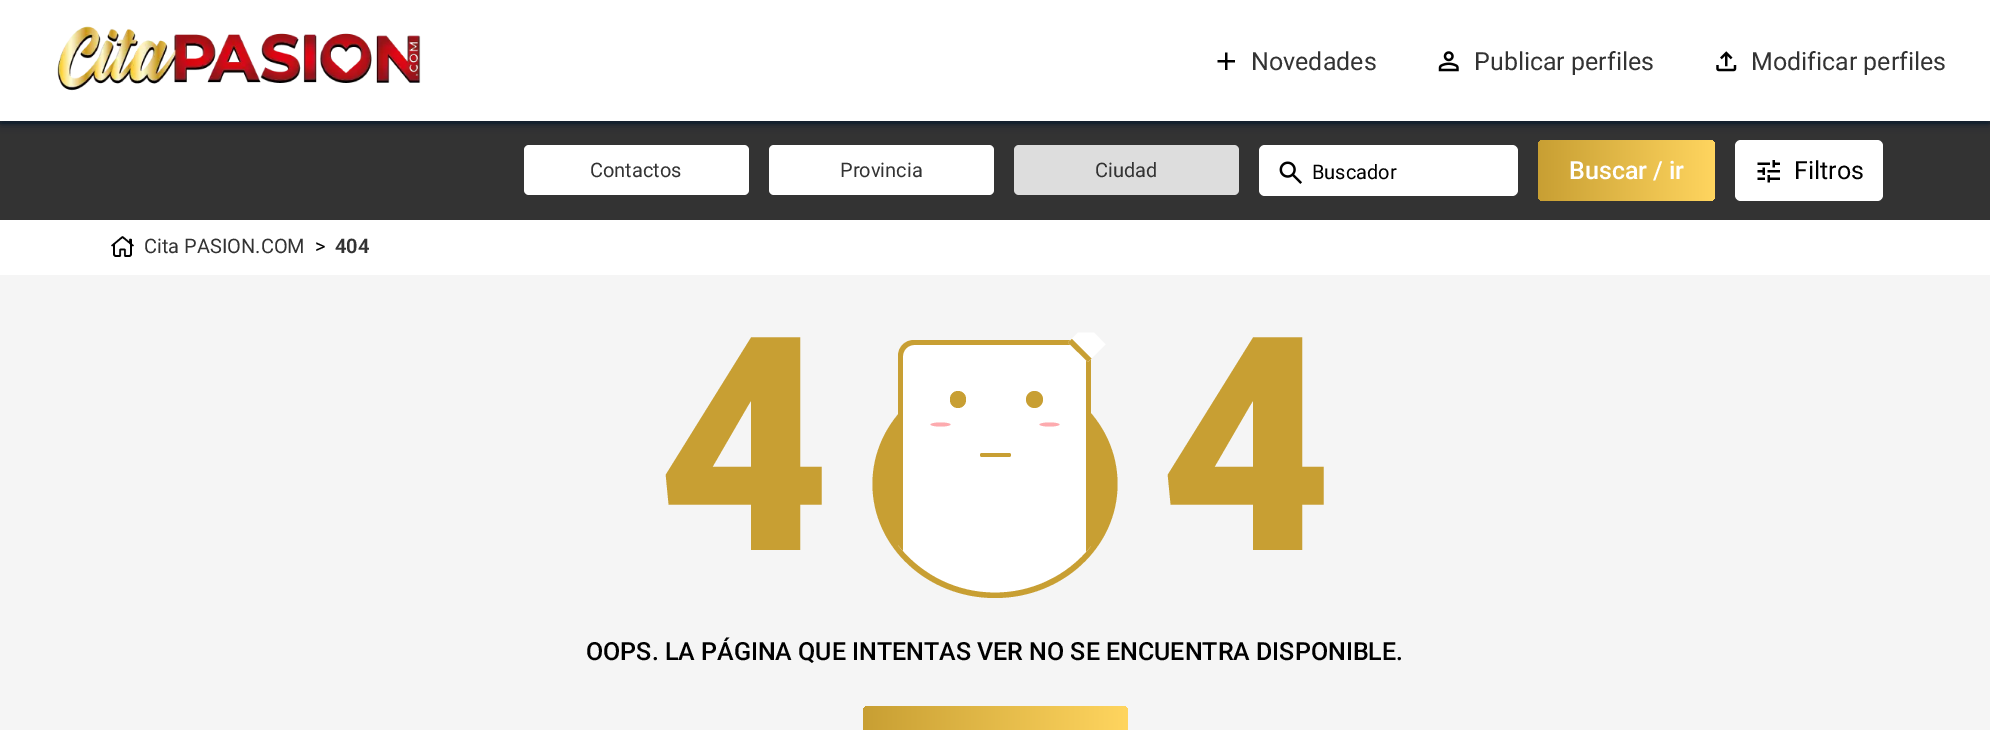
%!PS-Adobe-3.0
%%BoundingBox: 0 0 1990 730
%%LanguageLevel: 3
%%Pages: 1
%%EndComments
%%BeginProlog
/setalpha { dup .setfillconstantalpha .setstrokeconstantalpha } def
/rrect { 5 dict begin { /r /h /w /y /x } { exch def } forall
  x r add y moveto x w add y 2 copy h add r arct x w add y h add x 1 index r arct
  x y h add x y r arct x y 2 copy exch w add exch r arct closepath end } def
/softshadow { 12 dict begin { /a /b /q /h /w /y /x } { exch def } forall gsave /was 0 def
  9 -2 -9 { dup b mul 4 div /e exch def 1 sub .425 mul 2.718 exch exp 1 add a .99 .min exch div /now exch def
    1 1 now sub 1 was sub div sub setalpha /was now def
    w h .min e 2 mul add 0 gt { x e sub y e sub w e 2 mul add h e 2 mul add
      q e add b .6 mul add w h .min 2 div e add .min 0 .max rrect fill } if } for grestore end } def
/drawimage { 5 dict begin { /h /w /y /x /name } { exch def } forall
  gsave x y translate w h scale
  w h 8 [w 0 0 h 0 0] name (r) file false 3 colorimage grestore end } def
%%EndProlog
%%BeginSetup
<< /PageSize [1990 730] /PageUsesTransparency true >> setpagedevice
%%EndSetup
%%Page: 1 1
0 .pushpdf14devicefilter
0 730 translate 1 -1 scale
4 setmiterlimit
0.961 setgray
0 0 1990 730 rectfill
0.2 setgray
0 121 1990 99 rectfill
0.024 0.094 0.173 setrgbcolor
1 6 1988 119 0 4 0.65 softshadow
0.4 setalpha
3 setlinewidth
-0.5 -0.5 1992 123 rectstroke
1 setalpha
1 setgray
0 0 1990 121 rectfill
(images/1.raw) 57 26 364 65 drawimage
(images/2.raw) 1217 52 18 18 drawimage
(images/3.raw) 1438 51 21 21 drawimage
(images/4.raw) 1716 51 21 21 drawimage
524 145 225 50 5 rrect fill
769 145 225 50 5 rrect fill
0.867 setgray
1014 145 225 50 5 rrect fill
1 setgray
1259 145 259 51 6 rrect fill
(images/5.raw) 1279 161 23 23 drawimage
gsave 1538 140 177 61 6 rrect clip newpath
<< /ShadingType 2 /ColorSpace /DeviceRGB /Coords [1538 171 1715 171] /Extend [true true] /Function << /FunctionType 2 /Domain [0 1] /C0 [0.784 0.624 0.2] /C1 [1 0.835 0.373] /N 1 >> >> shfill grestore
1735 140 148 61 6 rrect fill
(images/6.raw) 1757 160 23 23 drawimage
0 220 1990 55 rectfill
(images/7.raw) 111 236 23 21 drawimage
0.784 0.624 0.2 setrgbcolor
newpath 995 370 moveto 1062.5 370 1117.5 421 1117.5 484 curveto 1117.5 547 1062.5 598 995 598 curveto 927.5 598 872.5 547 872.5 484 curveto 872.5 421 927.5 370 995 370 curveto closepath fill
1 setgray
newpath 914 340 moveto 1075 340 lineto 1084 340 1091 347 1091 356 curveto 1091 546 lineto 1041 608 948 608 898 545 curveto 898 356 lineto 898 347 905 340 914 340 curveto closepath fill
0.784 0.624 0.2 setrgbcolor
newpath 914 340 moveto 905 340 898 347 898 356 curveto 898 545 lineto 903 551 lineto 903 356 lineto 903 350 908 345 914 345 curveto 1075 345 lineto 1081 345 1086 350 1086 356 curveto 1086 552 lineto 1091 546 lineto 1091 356 lineto 1091 347 1084 340 1075 340 curveto closepath fill
1 setgray
newpath 1094 332.5 moveto 1105.5 344.5 lineto 1088 362 lineto 1068 342.5 lineto 1078 332.5 lineto closepath fill
0.784 0.624 0.2 setrgbcolor
newpath 1072 339 moveto 1091.5 358.5 lineto 1088 362 lineto 1068 342.5 lineto closepath fill
950 391 16 17 8 rrect fill
newpath 1034.5 399.5 8.5 0 360 arc closepath fill
0.992 0.671 0.686 setrgbcolor
newpath 940.5 422.5 moveto 946 422.5 950.5 423.5 950.5 424.5 curveto 950.5 425.5 946 426.5 940.5 426.5 curveto 935 426.5 930.5 425.5 930.5 424.5 curveto 930.5 423.5 935 422.5 940.5 422.5 curveto closepath fill
newpath 1049.5 422.5 moveto 1055 422.5 1059.5 423.5 1059.5 424.5 curveto 1059.5 425.5 1055 426.5 1049.5 426.5 curveto 1044 426.5 1039.5 425.5 1039.5 424.5 curveto 1039.5 423.5 1044 422.5 1049.5 422.5 curveto closepath fill
0.784 0.624 0.2 setrgbcolor
980 453 31 4 2 rrect fill
gsave 863 706 265 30 6 rrect clip newpath
<< /ShadingType 2 /ColorSpace /DeviceRGB /Coords [863 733 1128 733] /Extend [true true] /Function << /FunctionType 2 /Domain [0 1] /C0 [0.784 0.624 0.2] /C1 [1 0.835 0.373] /N 1 >> >> shfill grestore
/Roboto-Regular [25 0 0 -25 0 0] selectfont
0.2 setgray
1251 70 moveto (Novedades) show
1474 70 moveto (Publicar perfiles) show
1751 70 moveto (Modificar perfiles) show
/Roboto-Regular [20 0 0 -20 0 0] selectfont
590 177 moveto (Contactos) show
840 177 moveto (Provincia) show
1095 177 moveto (Ciudad) show
0 setgray
1312 179 moveto (Buscador) show
/Roboto-Medium [25 0 0 -25 0 0] selectfont
1 setgray
1569 179 moveto (Buscar / ir) show
/Roboto-Regular [25 0 0 -25 0 0] selectfont
0 setgray
1794 179 moveto (Filtros) show
/Roboto-Regular [20 0 0 -20 0 0] selectfont
0.2 setgray
144 253 moveto (Cita PASION.COM) show
0 setgray
315 253 moveto (>) show
/Roboto-SemiBold [20 0 0 -20 0 0] selectfont
0.2 setgray
335 253 moveto (404) show
/Roboto-Black [300 0 0 -300 0 0] selectfont
0.784 0.624 0.2 setrgbcolor
657 550 moveto (4) show
1159 550 moveto (4) show
/Roboto-Medium [25 0 0 -25 0 0] selectfont
0 setgray
586 660 moveto (OOPS. LA PÁGINA QUE INTENTAS VER NO SE ENCUENTRA DISPONIBLE.) show
.poppdf14devicefilter showpage
%%EOF
